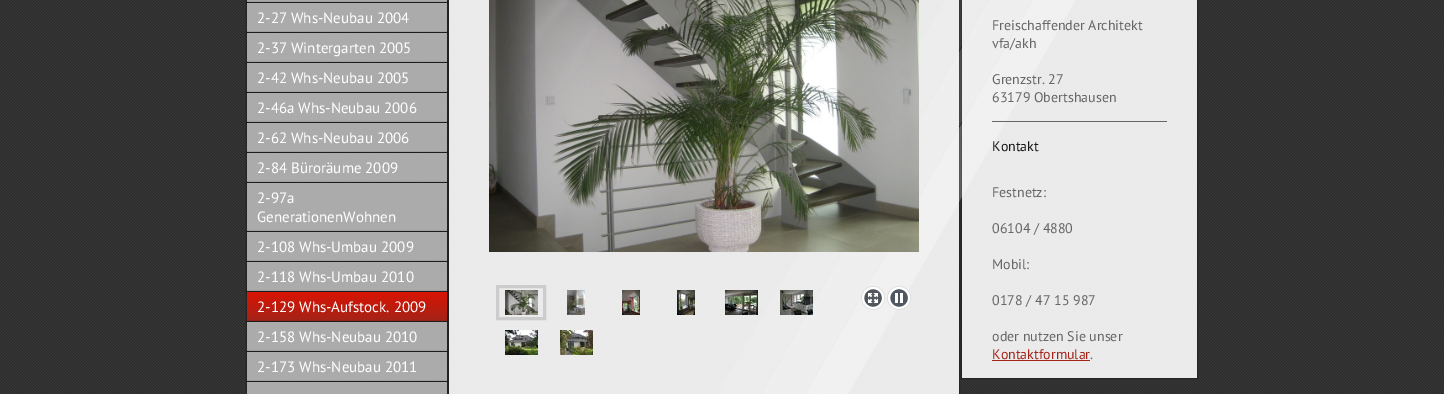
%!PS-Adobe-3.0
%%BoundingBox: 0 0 1444 394
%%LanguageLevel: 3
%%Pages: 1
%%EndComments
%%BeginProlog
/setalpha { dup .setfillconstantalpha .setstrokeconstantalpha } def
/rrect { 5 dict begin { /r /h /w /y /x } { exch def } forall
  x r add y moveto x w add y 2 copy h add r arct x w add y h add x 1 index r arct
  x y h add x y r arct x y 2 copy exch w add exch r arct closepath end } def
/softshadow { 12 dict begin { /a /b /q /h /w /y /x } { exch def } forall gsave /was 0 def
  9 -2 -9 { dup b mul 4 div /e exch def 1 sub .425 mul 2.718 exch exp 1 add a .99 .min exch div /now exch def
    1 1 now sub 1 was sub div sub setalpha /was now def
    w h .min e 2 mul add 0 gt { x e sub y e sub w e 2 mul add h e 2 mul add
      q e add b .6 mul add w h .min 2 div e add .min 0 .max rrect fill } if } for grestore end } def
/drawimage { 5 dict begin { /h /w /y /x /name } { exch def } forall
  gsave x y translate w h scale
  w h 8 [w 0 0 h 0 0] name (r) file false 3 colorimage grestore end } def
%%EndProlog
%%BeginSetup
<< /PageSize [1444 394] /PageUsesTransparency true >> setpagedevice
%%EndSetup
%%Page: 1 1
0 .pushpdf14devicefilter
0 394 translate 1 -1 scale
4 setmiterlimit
1 setgray
0 0 1444 394 rectfill
(images/1.raw) 0 0 1444 394 drawimage
(images/2.raw) 717 0 359 394 drawimage
0 setgray
246 -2 202 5 0 0.5 0.3 softshadow
0.671 setgray
247 0 200 2 rectfill
0 setgray
246 2 202 31 0 0.5 0.3 softshadow
0.671 setgray
247 3 200 29 rectfill
0 setgray
246 32 202 31 0 0.5 0.3 softshadow
0.671 setgray
247 33 200 29 rectfill
0 setgray
246 62 202 31 0 0.5 0.3 softshadow
0.671 setgray
247 63 200 29 rectfill
0 setgray
246 92 202 31 0 0.5 0.3 softshadow
0.671 setgray
247 93 200 29 rectfill
0 setgray
246 122 202 31 0 0.5 0.3 softshadow
0.671 setgray
247 123 200 29 rectfill
0 setgray
246 152 202 31 0 0.5 0.3 softshadow
0.671 setgray
247 153 200 29 rectfill
0 setgray
246 182 202 50 0 0.5 0.3 softshadow
0.671 setgray
247 183 200 48 rectfill
0 setgray
246 231 202 31 0 0.5 0.3 softshadow
0.671 setgray
247 232 200 29 rectfill
0 setgray
246 261 202 31 0 0.5 0.3 softshadow
0.671 setgray
247 262 200 29 rectfill
0 setgray
246 291 202 31 0 0.5 0.3 softshadow
gsave newpath 247 292 moveto 447 292 lineto 447 321 lineto 247 321 lineto closepath clip newpath
<< /ShadingType 2 /ColorSpace /DeviceRGB /Coords [347 292 347 321] /Extend [true true] /Function << /FunctionType 2 /Domain [0 1] /C0 [0.851 0.078 0.012] /C1 [0.643 0.137 0.094] /N 1 >> >> shfill grestore
246 321 202 31 0 0.5 0.3 softshadow
0.671 setgray
247 322 200 29 rectfill
0 setgray
246 351 202 31 0 0.5 0.3 softshadow
0.671 setgray
247 352 200 29 rectfill
0 setgray
246 381 202 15 0 0.5 0.3 softshadow
0.671 setgray
247 382 200 12 rectfill
gsave
newpath 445 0 moveto 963 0 lineto 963 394 lineto 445 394 lineto closepath 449 -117 moveto 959 -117 lineto 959 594 lineto 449 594 lineto closepath eoclip newpath
0 setgray
448 -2 512 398 0 0.5 0.3 softshadow
grestore
0.9 setalpha
1 setgray
449 0 510 394 rectfill
1 setalpha
(images/3.raw) 489 0 430 252 drawimage
0.8 setgray
3 setlinewidth
497.5 286.5 47 32 rectstroke
(images/4.raw) 505 290 33 25 drawimage
(images/5.raw) 567 290 18 25 drawimage
(images/6.raw) 622 290 18 25 drawimage
(images/7.raw) 677 290 18 25 drawimage
(images/8.raw) 725 290 33 25 drawimage
(images/9.raw) 780 290 33 25 drawimage
(images/10.raw) 861 286 24 24 drawimage
(images/11.raw) 887 286 24 24 drawimage
(images/12.raw) 505 330 33 25 drawimage
(images/13.raw) 560 330 33 25 drawimage
gsave
newpath 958 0 moveto 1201 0 lineto 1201 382 lineto 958 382 lineto closepath 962 -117 moveto 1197 -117 lineto 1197 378 lineto 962 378 lineto closepath eoclip newpath
0 setgray
961 -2 237 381 0 0.5 0.3 softshadow
grestore
0.9 setalpha
1 setgray
962 0 235 378 rectfill
1 setalpha
0.4 setgray
992 121 175 1 rectfill
0.643 0.137 0.094 setrgbcolor
992 360 98 1 rectfill
/PTSans-Regular [15 0 0 -15 0 0] selectfont
1 setgray
257 23 moveto (2-27 Whs-Neubau 2004) show
257 53 moveto (2-37 Wintergarten 2005) show
257 83 moveto (2-42 Whs-Neubau 2005) show
257 113 moveto (2-46a Whs-Neubau 2006) show
257 143 moveto (2-62 Whs-Neubau 2006) show
257 173 moveto (2-84 Büroräume 2009) show
257 203 moveto (2-97a) show
257 222 moveto (GenerationenWohnen) show
257 252 moveto (2-108 Whs-Umbau 2009) show
257 282 moveto (2-118 Whs-Umbau 2010) show
257 312 moveto (2-129 Whs-Aufstock. 2009) show
257 342 moveto (2-158 Whs-Neubau 2010) show
257 372 moveto (2-173 Whs-Neubau 2011) show
/PTSans-Regular [14 0 0 -14 0 0] selectfont
0.4 setgray
992 30 moveto (Freischaffender Architekt) show
992 48 moveto (vfa/akh) show
992 84 moveto (Grenzstr. 27) show
992 102 moveto (63179 Obertshausen) show
0.094 setgray
992 151 moveto (Kontakt) show
0.4 setgray
992 197 moveto (Festnetz:) show
992 233 moveto (06104 / 4880) show
992 269 moveto (Mobil:) show
992 305 moveto (0178 / 47 15 987) show
992 341 moveto (oder nutzen Sie unser) show
0.643 0.137 0.094 setrgbcolor
992 359 moveto (Kontaktformular) show
0.4 setgray
1090 359 moveto (.) show
.poppdf14devicefilter showpage
%%EOF
